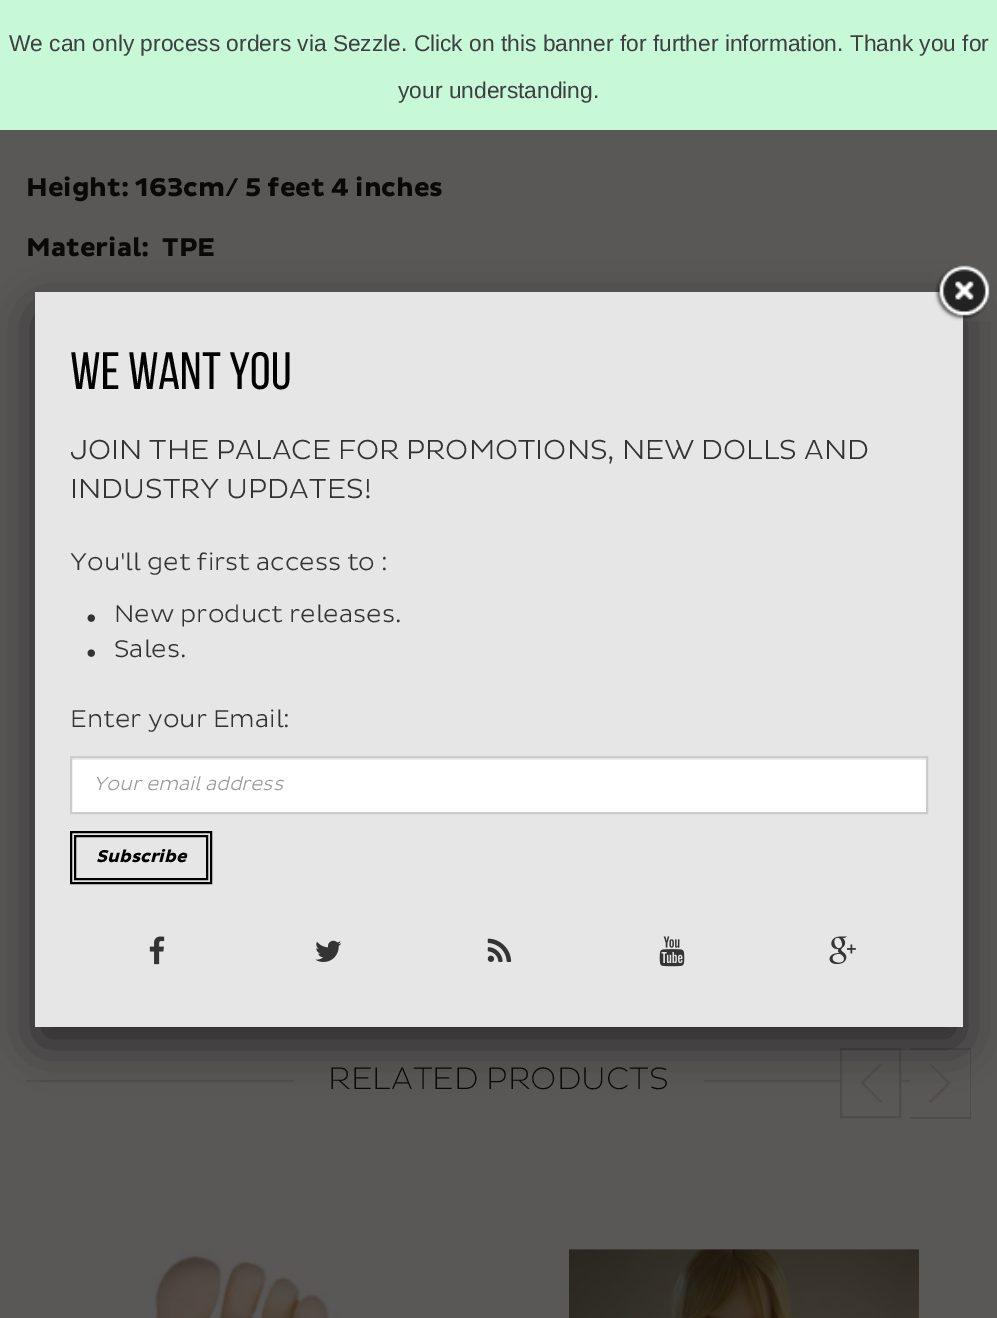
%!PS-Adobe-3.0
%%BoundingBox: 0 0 997 1318
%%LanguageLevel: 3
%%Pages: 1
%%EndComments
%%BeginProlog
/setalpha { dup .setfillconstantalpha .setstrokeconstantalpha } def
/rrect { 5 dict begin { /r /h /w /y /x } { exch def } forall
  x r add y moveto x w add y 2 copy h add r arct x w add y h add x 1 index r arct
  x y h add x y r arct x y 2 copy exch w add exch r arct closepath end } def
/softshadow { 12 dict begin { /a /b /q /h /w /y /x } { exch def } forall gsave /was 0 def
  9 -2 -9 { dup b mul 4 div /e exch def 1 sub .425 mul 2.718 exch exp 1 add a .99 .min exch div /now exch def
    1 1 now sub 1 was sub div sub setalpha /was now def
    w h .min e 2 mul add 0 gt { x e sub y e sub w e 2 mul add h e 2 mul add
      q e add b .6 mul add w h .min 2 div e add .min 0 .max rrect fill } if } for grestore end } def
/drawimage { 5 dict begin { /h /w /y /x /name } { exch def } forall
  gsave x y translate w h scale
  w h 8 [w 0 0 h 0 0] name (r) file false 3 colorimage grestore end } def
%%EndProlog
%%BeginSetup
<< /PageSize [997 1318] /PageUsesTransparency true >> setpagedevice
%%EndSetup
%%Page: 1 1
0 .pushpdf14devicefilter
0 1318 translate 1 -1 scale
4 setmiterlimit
0.353 0.341 0.341 setrgbcolor
0 0 997 1318 rectfill
0.78 0.976 0.847 setrgbcolor
0 0 997 130 rectfill
0.322 0.31 0.31 setrgbcolor
704 1080 206 2 rectfill
0.353 0.341 0.341 setrgbcolor
842 1080 57 2 rectfill
(images/1.raw) 861 1063 21 40 drawimage
0.31 0.298 0.298 setrgbcolor
2 setlinewidth
841 1049 59 68 rectstroke
(images/2.raw) 929 1063 22 40 drawimage
910 1048 61 2 rectfill
970 1048 1 70 rectfill
910 1117 61 2 rectfill
(images/3.raw) 151 1250 188 68 drawimage
(images/4.raw) 569 1249 350 69 drawimage
0.322 0.31 0.31 setrgbcolor
26 1080 268 2 rectfill
0 setgray
35 310 928 735 7 22 0.5 softshadow
0.902 setgray
35 292 928 735 rectfill
(images/5.raw) 934 265 56 56 drawimage
(images/6.raw) 87 614 8 8 drawimage
(images/6.raw) 87 649 8 8 drawimage
1 setgray
72 760 854 52 rectfill
0.925 setgray
72 758 854 2 rectfill
0.8 setgray
71 757 856 56 rectstroke
0 setgray
71 832 140 51 rectstroke
75 836 132 43 rectstroke
(images/7.raw) 149 936 16 29 drawimage
(images/8.raw) 315 940 27 22 drawimage
(images/9.raw) 487 938 25 24 drawimage
(images/10.raw) 659 936 26 31 drawimage
(images/11.raw) 829 936 27 29 drawimage
/LiberationSans-Regular [22.75 0 0 -22.75 0 0] selectfont
0.247 setgray
9 51 moveto (We can only process orders via Sezzle. Click on this banner for further information. Thank you for) show
398 98 moveto (your understanding.) show
/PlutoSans-Bold [26.25 0 0 -26.25 0 0] selectfont
0.043 0.031 0.031 setrgbcolor
26 196 moveto (Height: 163cm/ 5 feet 4 inches) show
26 256 moveto (Material:  TPE) show
/PlutoSans-ExtraLight [31.5 0 0 -31.5 0 0] selectfont
328 1089 moveto (RELATED PRODUCTS) show
/BebasNeue-Regular [52.5 0 0 -52.5 0 0] selectfont
0 setgray
70 389 moveto (WE WANT YOU) show
/PlutoSans-Light [28 0 0 -28 0 0] selectfont
0.2 setgray
70 459 moveto (JOIN THE PALACE FOR PROMOTIONS, NEW DOLLS AND) show
70 498 moveto (INDUSTRY UPDATES!) show
/PlutoSans-Light [24.5 0 0 -24.5 0 0] selectfont
70 570 moveto (You'll get first access to :) show
114 622 moveto (New product releases.) show
114 657 moveto (Sales.) show
70 727 moveto (Enter your Email:) show
/PlutoSans-LightItalic [19.25 0 0 -19.25 0 0] selectfont
0.6 setgray
93 790 moveto (Your email address) show
/PlutoSans-BoldItalic [17.5 0 0 -17.5 0 0] selectfont
0 setgray
96 862 moveto (Subscribe) show
.poppdf14devicefilter showpage
%%EOF
